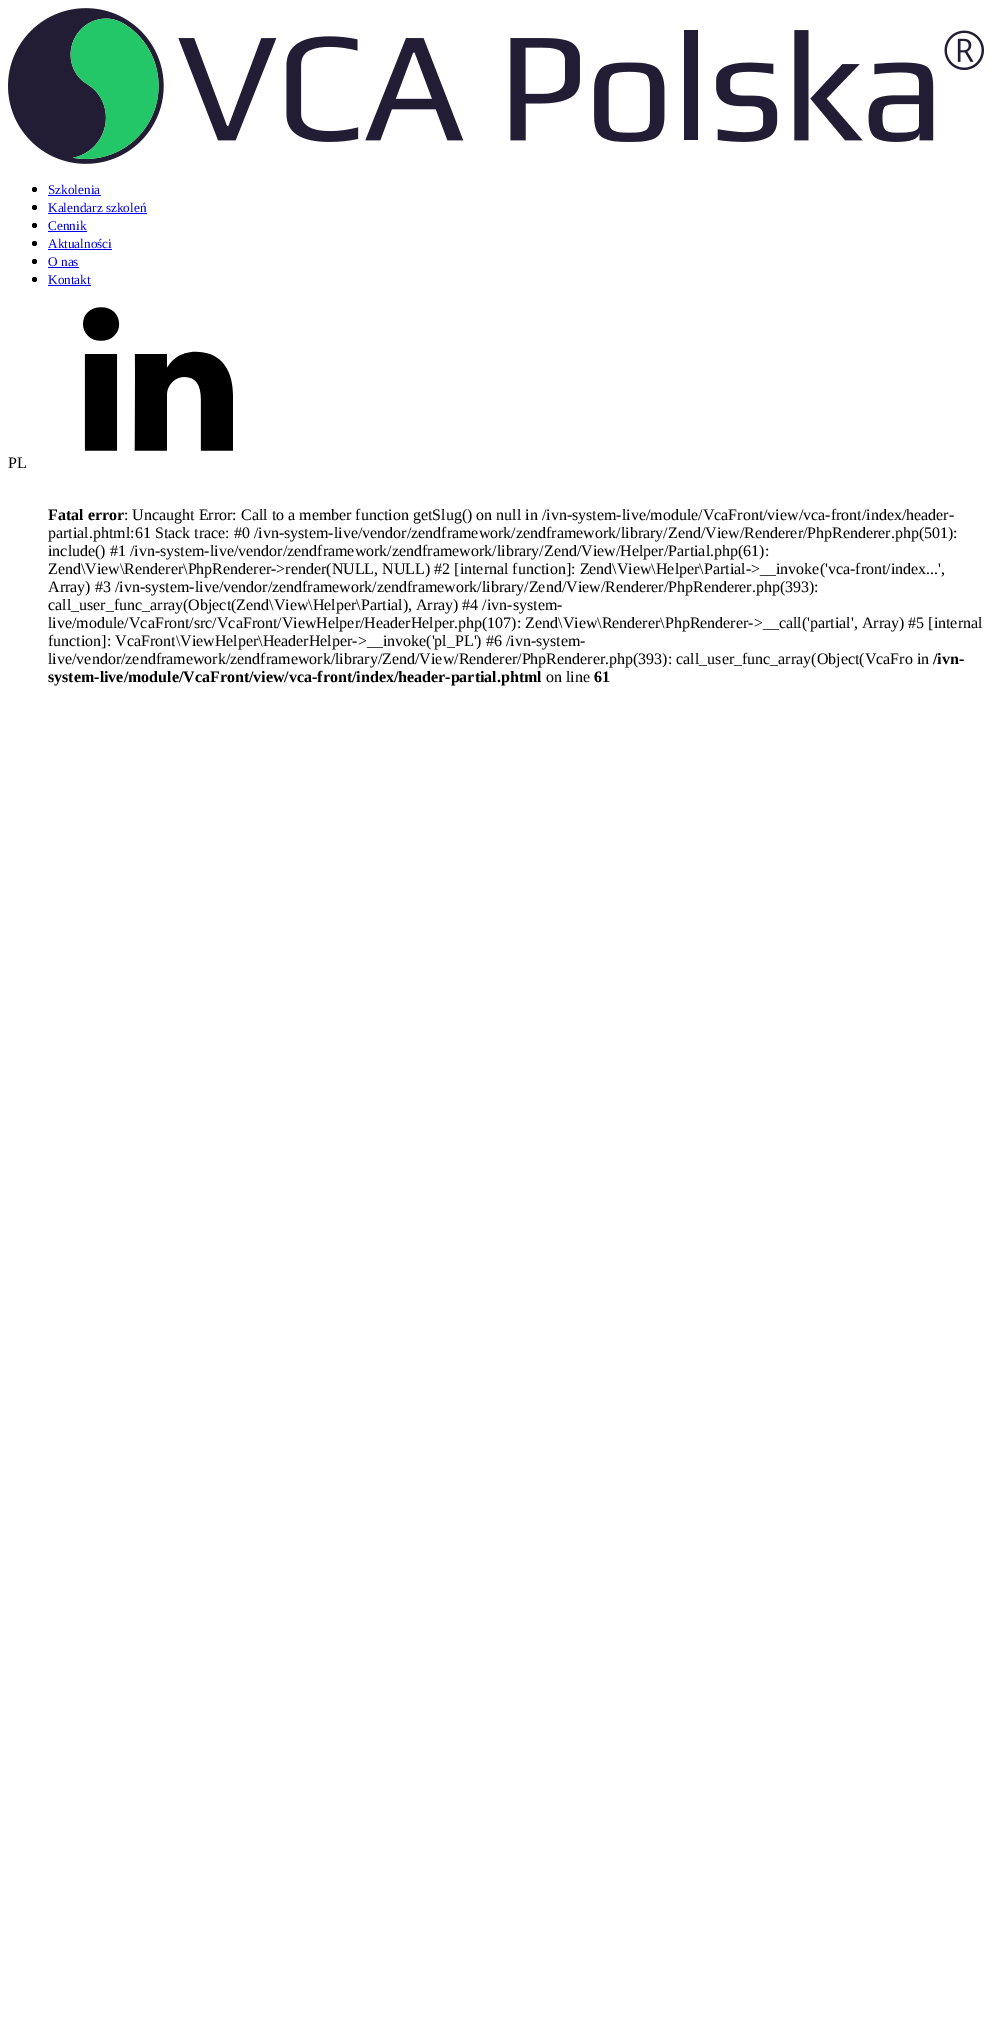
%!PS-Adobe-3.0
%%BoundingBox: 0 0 992 2039
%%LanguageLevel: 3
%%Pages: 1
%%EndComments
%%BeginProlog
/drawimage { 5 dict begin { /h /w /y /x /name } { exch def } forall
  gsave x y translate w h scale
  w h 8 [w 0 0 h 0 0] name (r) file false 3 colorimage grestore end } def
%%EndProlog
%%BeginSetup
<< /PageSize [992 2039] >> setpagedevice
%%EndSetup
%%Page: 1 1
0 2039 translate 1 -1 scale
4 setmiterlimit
1 setgray
0 0 992 2039 rectfill
(images/1.raw) 8 8 976 156 drawimage
0 setgray
newpath 34.5 189.5 2.5 0 360 arc closepath fill
0 0 0.933 setrgbcolor
48 195 53 1 rectfill
0 setgray
newpath 34.5 207.5 2.5 0 360 arc closepath fill
0 0 0.933 setrgbcolor
48 213 99 1 rectfill
0 setgray
newpath 34.5 225.5 2.5 0 360 arc closepath fill
0 0 0.933 setrgbcolor
48 231 39 1 rectfill
0 setgray
newpath 34.5 243.5 2.5 0 360 arc closepath fill
0 0 0.933 setrgbcolor
48 249 64 1 rectfill
0 setgray
newpath 34.5 261.5 2.5 0 360 arc closepath fill
0 0 0.933 setrgbcolor
48 267 31 1 rectfill
0 setgray
newpath 34.5 279.5 2.5 0 360 arc closepath fill
0 0 0.933 setrgbcolor
48 285 43 1 rectfill
(images/2.raw) 83 307 150 144 drawimage
/LiberationSerif-Regular [13.25 0 0 -13.25 0 0] selectfont
48 194 moveto (Szkolenia) show
48 212 moveto (Kalendarz szkoleń) show
48 230 moveto (Cennik) show
48 248 moveto (Aktualności) show
48 266 moveto (O nas) show
48 284 moveto (Kontakt) show
/LiberationSerif-Regular [16 0 0 -16 0 0] selectfont
0 setgray
8 468 moveto (PL) show
/LiberationSerif-Bold [16 0 0 -16 0 0] selectfont
48 520 moveto (Fatal error) show
/LiberationSerif-Regular [16 0 0 -16 0 0] selectfont
124 520 moveto (: Uncaught Error: Call to a member function getSlug\(\) on null in /ivn-system-live/module/VcaFront/view/vca-front/index/header-) show
48 538 moveto (partial.phtml:61 Stack trace: #0 /ivn-system-live/vendor/zendframework/zendframework/library/Zend/View/Renderer/PhpRenderer.php\(501\):) show
48 556 moveto (include\(\) #1 /ivn-system-live/vendor/zendframework/zendframework/library/Zend/View/Helper/Partial.php\(61\):) show
48 574 moveto (Zend\\View\\Renderer\\PhpRenderer->render\(NULL, NULL\) #2 [internal function]: Zend\\View\\Helper\\Partial->__invoke\('vca-front/index...',) show
48 592 moveto (Array\) #3 /ivn-system-live/vendor/zendframework/zendframework/library/Zend/View/Renderer/PhpRenderer.php\(393\):) show
48 610 moveto (call_user_func_array\(Object\(Zend\\View\\Helper\\Partial\), Array\) #4 /ivn-system-) show
48 628 moveto (live/module/VcaFront/src/VcaFront/ViewHelper/HeaderHelper.php\(107\): Zend\\View\\Renderer\\PhpRenderer->__call\('partial', Array\) #5 [internal) show
48 646 moveto (function]: VcaFront\\ViewHelper\\HeaderHelper->__invoke\('pl_PL'\) #6 /ivn-system-) show
48 664 moveto (live/vendor/zendframework/zendframework/library/Zend/View/Renderer/PhpRenderer.php\(393\): call_user_func_array\(Object\(VcaFro in) show
/LiberationSerif-Bold [16 0 0 -16 0 0] selectfont
933 664 moveto (/ivn-) show
48 682 moveto (system-live/module/VcaFront/view/vca-front/index/header-partial.phtml) show
/LiberationSerif-Regular [16 0 0 -16 0 0] selectfont
546 682 moveto (on line) show
/LiberationSerif-Bold [16 0 0 -16 0 0] selectfont
594 682 moveto (61) show
showpage
%%EOF
